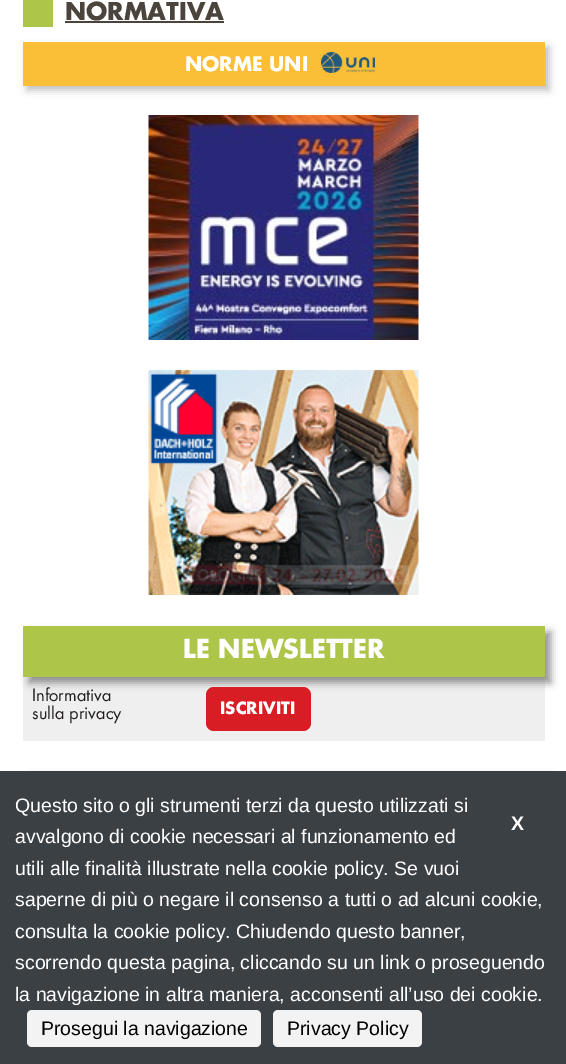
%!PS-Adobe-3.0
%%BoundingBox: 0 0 566 1064
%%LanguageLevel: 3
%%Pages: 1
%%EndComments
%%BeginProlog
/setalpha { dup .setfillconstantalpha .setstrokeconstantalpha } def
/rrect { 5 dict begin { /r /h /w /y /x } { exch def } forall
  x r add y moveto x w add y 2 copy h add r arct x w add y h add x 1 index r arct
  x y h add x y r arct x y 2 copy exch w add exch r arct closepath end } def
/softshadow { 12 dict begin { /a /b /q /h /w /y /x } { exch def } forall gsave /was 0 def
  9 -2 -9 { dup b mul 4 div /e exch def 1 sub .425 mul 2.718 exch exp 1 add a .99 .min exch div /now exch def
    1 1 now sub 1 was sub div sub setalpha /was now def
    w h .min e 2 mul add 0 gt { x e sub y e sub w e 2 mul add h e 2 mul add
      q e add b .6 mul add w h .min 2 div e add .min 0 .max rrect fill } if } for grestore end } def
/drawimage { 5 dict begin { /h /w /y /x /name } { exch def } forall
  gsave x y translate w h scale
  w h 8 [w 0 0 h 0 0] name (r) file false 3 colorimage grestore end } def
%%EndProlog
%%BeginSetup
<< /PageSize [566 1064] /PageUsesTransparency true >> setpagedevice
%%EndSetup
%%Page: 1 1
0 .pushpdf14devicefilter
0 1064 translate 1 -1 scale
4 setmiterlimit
1 setgray
0 0 566 1064 rectfill
0.678 0.776 0.286 setrgbcolor
23 0 30 27 rectfill
0.29 0.267 0.239 setrgbcolor
65 21 159 2 rectfill
0.196 setgray
27 47 522 43 0 4 0.33 softshadow
0.98 0.745 0.216 setrgbcolor
23 42 522 44 rectfill
(images/1.raw) 321 52 54 21 drawimage
(images/2.raw) 148 115 271 225 drawimage
(images/3.raw) 148 370 271 225 drawimage
0.937 setgray
23 677 522 64 rectfill
0.196 setgray
29 632 522 51 0 4 0.52 softshadow
0.678 0.776 0.286 setrgbcolor
23 626 522 51 rectfill
0.847 0.114 0.141 setrgbcolor
206 687 105 44 8 rrect fill
0.196 setgray
29 777 522 53 0 4 0.52 softshadow
0.231 0.251 0.271 setrgbcolor
0 771 566 293 rectfill
0.953 setgray
27 1010 234 37 5 rrect fill
273 1010 149 37 5 rrect fill
/Futura-Bold [24 0 0 -24 0 0] selectfont
0.29 0.267 0.239 setrgbcolor
65 20 moveto (NORMATIVA) show
/Futura-Bold [19.5 0 0 -19.5 0 0] selectfont
1 setgray
185 71 moveto (NORME UNI) show
/Futura-Bold [25.5 0 0 -25.5 0 0] selectfont
183 658 moveto (LE NEWSLETTER) show
/Futura-Regular [16.5 0 0 -16.5 0 0] selectfont
0.133 0.118 0.122 setrgbcolor
32 701 moveto (Informativa) show
32 719 moveto (sulla privacy) show
/Futura-Bold [16.5 0 0 -16.5 0 0] selectfont
1 setgray
220 714 moveto (ISCRIVITI) show
/LiberationSans-Regular [19.5 0 0 -19.5 0 0] selectfont
15 812 moveto (Questo sito o gli strumenti terzi da questo utilizzati si) show
/LiberationSans-Bold [19.5 0 0 -19.5 0 0] selectfont
511 830 moveto (X) show
/LiberationSans-Regular [19.5 0 0 -19.5 0 0] selectfont
15 843 moveto (avvalgono di cookie necessari al funzionamento ed) show
15 875 moveto (utili alle finalità illustrate nella cookie policy. Se vuoi) show
15 906 moveto (saperne di più o negare il consenso a tutti o ad alcuni cookie,) show
15 938 moveto (consulta la cookie policy. Chiudendo questo banner,) show
15 969 moveto (scorrendo questa pagina, cliccando su un link o proseguendo) show
15 1001 moveto (la navigazione in altra maniera, acconsenti all’uso dei cookie.) show
0 setgray
41 1035 moveto (Prosegui la navigazione) show
287 1035 moveto (Privacy Policy) show
.poppdf14devicefilter showpage
%%EOF
